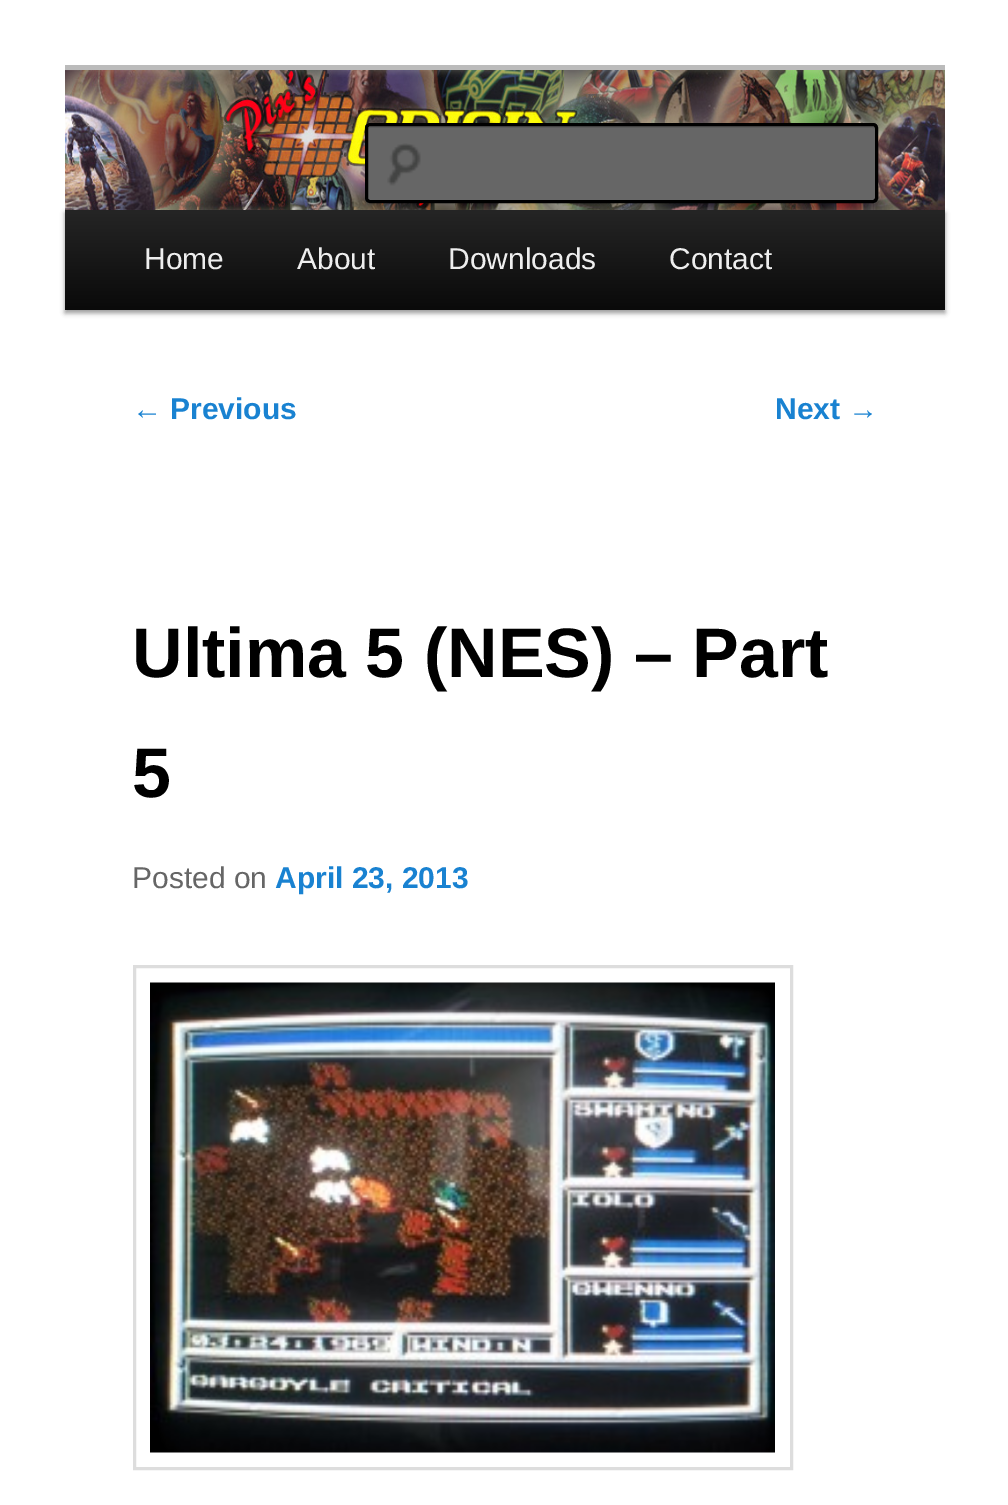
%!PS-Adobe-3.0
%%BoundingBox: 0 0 1008 1505
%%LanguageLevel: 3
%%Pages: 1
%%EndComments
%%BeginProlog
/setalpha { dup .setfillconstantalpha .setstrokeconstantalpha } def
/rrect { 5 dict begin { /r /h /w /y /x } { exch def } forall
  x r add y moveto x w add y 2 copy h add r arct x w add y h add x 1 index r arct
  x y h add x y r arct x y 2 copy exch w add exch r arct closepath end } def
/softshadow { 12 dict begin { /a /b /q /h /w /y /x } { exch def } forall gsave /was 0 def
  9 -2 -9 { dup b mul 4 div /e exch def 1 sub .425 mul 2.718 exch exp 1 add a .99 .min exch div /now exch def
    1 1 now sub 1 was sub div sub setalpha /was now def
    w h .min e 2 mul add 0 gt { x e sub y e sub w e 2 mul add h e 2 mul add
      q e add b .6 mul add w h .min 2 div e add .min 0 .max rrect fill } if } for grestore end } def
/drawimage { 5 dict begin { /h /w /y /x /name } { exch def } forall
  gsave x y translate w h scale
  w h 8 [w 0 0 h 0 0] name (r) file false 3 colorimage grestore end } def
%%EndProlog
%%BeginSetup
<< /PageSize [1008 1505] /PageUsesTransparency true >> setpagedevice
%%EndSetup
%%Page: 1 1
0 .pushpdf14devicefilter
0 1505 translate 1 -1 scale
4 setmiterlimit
1 setgray
0 0 1008 1505 rectfill
0.733 setgray
65 65 880 5 rectfill
0 setgray
65 213 880 100 0 2.5 0.4 softshadow
(images/1.raw) 65 70 880 140 drawimage
0.4 setgray
365 123 513 80 5 rrect fill
(images/2.raw) 387 143 34 43 drawimage
0.361 setgray
newpath 370 128 moveto 872 128 lineto 874 128 875 129 875 130 curveto 875 128 875 125 872 125 curveto 370 125 lineto 368 126 lineto 368 130 lineto 368 129 369 128 370 128 curveto closepath fill
0 setgray
3 setlinewidth
366.5 124.5 510 77 3.5 rrect stroke
gsave newpath 65 210 moveto 945 210 lineto 945 310 lineto 65 310 lineto closepath clip newpath
<< /ShadingType 2 /ColorSpace /DeviceRGB /Coords [505 210 505 310] /Extend [true true] /Function << /FunctionType 2 /Domain [0 1] /C0 [0.145 0.145 0.145] /C1 [0.039 0.039 0.039] /N 1 >> >> shfill grestore
0.867 setgray
134.5 966.5 657 502 rectstroke
(images/3.raw) 150 982 625 471 drawimage
/LiberationSans-Regular [30 0 0 -30 0 0] selectfont
0.933 setgray
144 269 moveto (Home) show
297 269 moveto (About) show
448 269 moveto (Downloads) show
669 269 moveto (Contact) show
0.098 0.51 0.82 setrgbcolor
132 419 moveto (←) show
/LiberationSans-Bold [30 0 0 -30 0 0] selectfont
170 419 moveto (Previous) show
775 419 moveto (Next) show
/LiberationSans-Regular [30 0 0 -30 0 0] selectfont
848 419 moveto (→) show
/LiberationSans-Bold [70 0 0 -70 0 0] selectfont
0 setgray
132 677 moveto (Ultima 5 \(NES\) – Part) show
132 797 moveto (5) show
/LiberationSans-Regular [30 0 0 -30 0 0] selectfont
0.4 setgray
132 888 moveto (Posted on) show
/LiberationSans-Bold [30 0 0 -30 0 0] selectfont
0.098 0.51 0.82 setrgbcolor
275 888 moveto (April 23, 2013) show
.poppdf14devicefilter showpage
%%EOF
